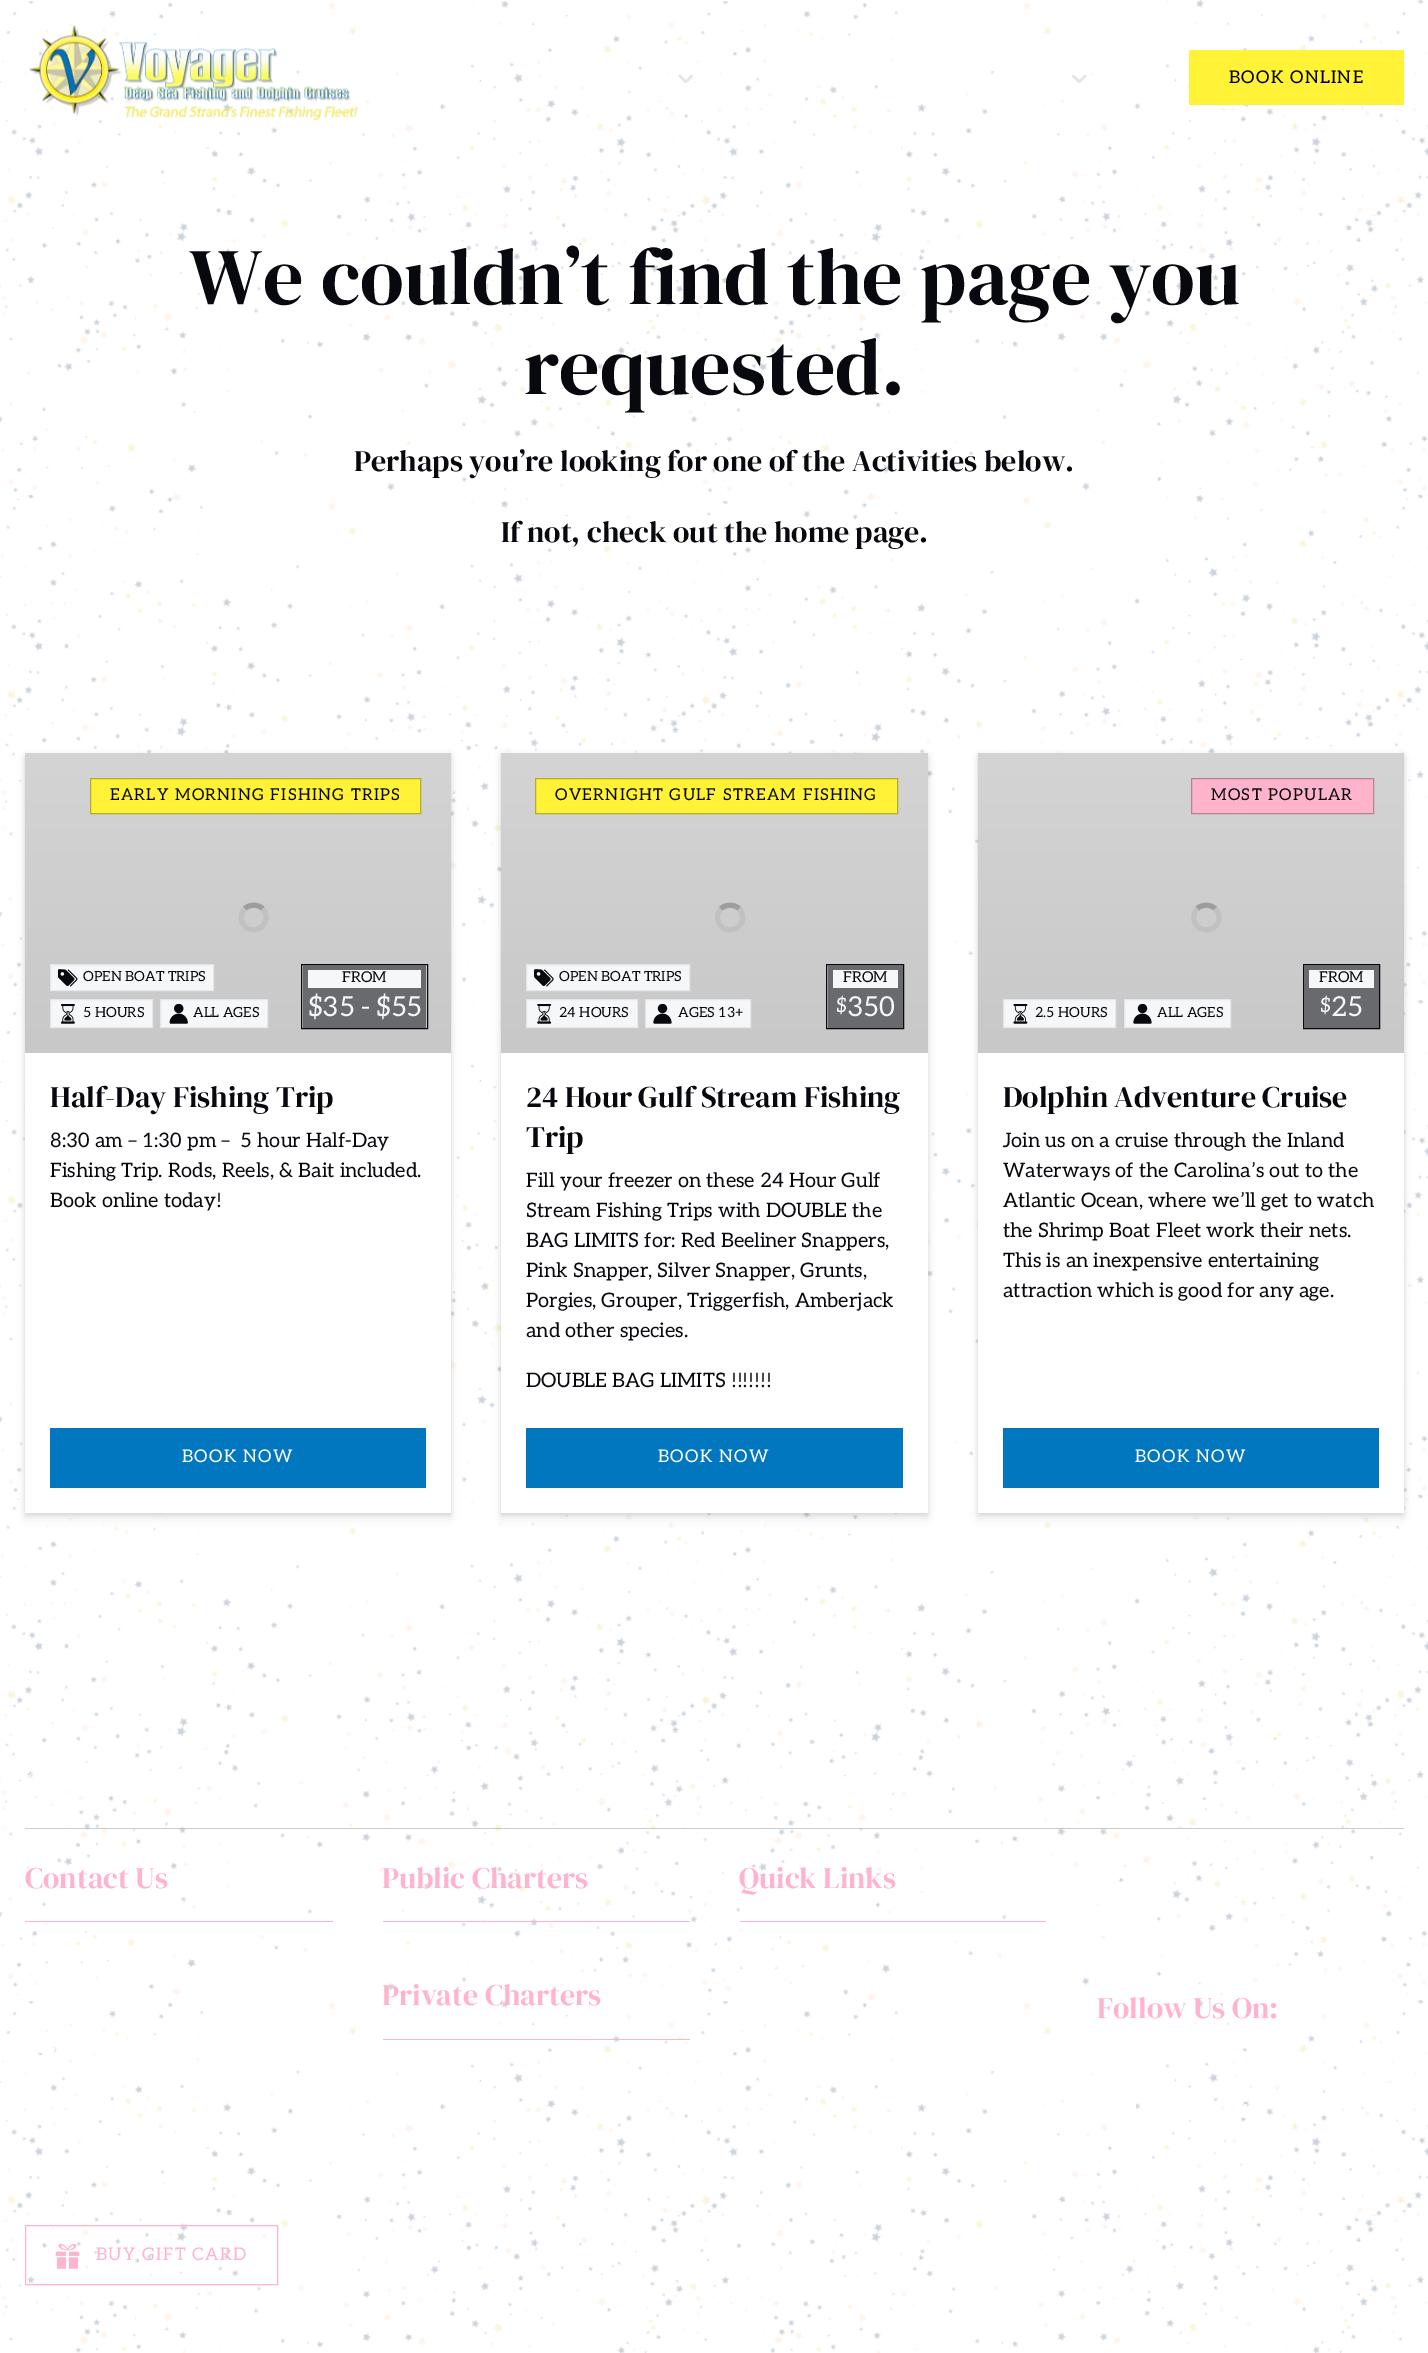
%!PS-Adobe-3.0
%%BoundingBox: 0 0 1428 2353
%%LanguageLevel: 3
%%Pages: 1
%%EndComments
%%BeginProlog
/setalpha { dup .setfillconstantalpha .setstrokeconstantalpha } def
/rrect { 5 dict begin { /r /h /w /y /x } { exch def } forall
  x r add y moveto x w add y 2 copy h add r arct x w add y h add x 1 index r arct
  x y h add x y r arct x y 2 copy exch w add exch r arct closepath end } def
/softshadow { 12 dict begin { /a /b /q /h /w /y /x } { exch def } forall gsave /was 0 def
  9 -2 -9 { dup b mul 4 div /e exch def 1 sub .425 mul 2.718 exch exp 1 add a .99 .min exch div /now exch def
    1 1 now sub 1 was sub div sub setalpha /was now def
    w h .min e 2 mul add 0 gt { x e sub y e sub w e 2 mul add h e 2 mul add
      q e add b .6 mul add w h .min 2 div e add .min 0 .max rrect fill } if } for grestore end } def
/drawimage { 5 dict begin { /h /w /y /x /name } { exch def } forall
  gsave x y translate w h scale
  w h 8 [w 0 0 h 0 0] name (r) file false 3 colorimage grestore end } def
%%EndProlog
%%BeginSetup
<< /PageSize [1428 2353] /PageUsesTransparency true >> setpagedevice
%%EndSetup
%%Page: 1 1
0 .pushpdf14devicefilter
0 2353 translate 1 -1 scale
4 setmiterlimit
1 setgray
0 0 1428 2353 rectfill
(images/1.raw) 0 0 1428 2353 drawimage
(images/2.raw) 29 25 329 96 drawimage
0.902 setgray
newpath 679 75 moveto 680.5 74 683 77 683.5 78 curveto 684.5 78.5 687.5 81 686 82.5 curveto 685 83.5 682.5 80.5 682 79.5 curveto 681 79 677.5 76.5 679 75 curveto closepath fill
newpath 692.5 75 moveto 694 76.5 690.5 79 690 79.5 curveto 689 80.5 687 83.5 685.5 82.5 curveto 684 81 687.5 78.5 688 78 curveto 689 77 691 74 692.5 75 curveto closepath fill
newpath 1072.5 75 moveto 1074 74 1076 77 1077 78 curveto 1077.5 78.5 1081 81 1079.5 82.5 curveto 1078 83.5 1076 80.5 1075 79.5 curveto 1074.5 79 1071 76.5 1072.5 75 curveto closepath fill
newpath 1086 75 moveto 1087.5 76.5 1084 79 1083 79.5 curveto 1082.5 80.5 1080 83.5 1079 82.5 curveto 1077.5 81 1080.5 78.5 1081.5 78 curveto 1082 77 1084.5 74 1086 75 curveto closepath fill
1 0.949 0.216 setrgbcolor
1189 50 215 55 rectfill
0 setgray
25 758 426 760 0 4 0.1 softshadow
25 754 426 760 0 2 0.08 softshadow
1 setgray
25 1053 426 460 rectfill
gsave newpath 25 753 moveto 451 753 lineto 451 1053 lineto 25 1053 lineto closepath clip newpath
<< /ShadingType 2 /ColorSpace /DeviceRGB /Coords [238 1053 238 753] /Extend [true true] /Function << /FunctionType 2 /Domain [0 1] /C0 [0.784 0.784 0.788] /C1 [0.831 0.831 0.835] /N 1 >> >> shfill grestore
1 0.949 0.216 setrgbcolor
newpath 90.5 778.5 moveto 420.5 778.5 lineto 420.5 813.5 lineto 90.5 813.5 lineto closepath gsave fill grestore
0.71 0.675 0.169 setrgbcolor
stroke
0.616 0.616 0.624 setrgbcolor
5 setlinewidth
newpath 245 908.5 moveto 249.5 904 258 904 262.5 908.5 curveto stroke
0.25 setalpha
0.612 0.612 0.62 setrgbcolor
newpath 262.5 908.5 moveto 265 911 266 914 266 917.5 curveto 266 932.5 244.5 934.5 241.5 920 curveto 240.5 916 242 911.5 245 908.5 curveto stroke
1 setalpha
0.961 0.969 0.976 setrgbcolor
newpath 50.5 964.5 moveto 213.5 964.5 lineto 213.5 990.5 lineto 50.5 990.5 lineto closepath gsave fill grestore
0.894 0.902 0.914 setrgbcolor
1 setlinewidth
stroke
(images/3.raw) 58 969 20 18 drawimage
0.961 0.969 0.976 setrgbcolor
newpath 50.5 999.5 moveto 152.5 999.5 lineto 152.5 1027.5 lineto 50.5 1027.5 lineto closepath gsave fill grestore
0.894 0.902 0.914 setrgbcolor
stroke
(images/4.raw) 60 1004 15 20 drawimage
0.961 0.969 0.976 setrgbcolor
newpath 160.5 999.5 moveto 267.5 999.5 lineto 267.5 1027.5 lineto 160.5 1027.5 lineto closepath gsave fill grestore
0.894 0.902 0.914 setrgbcolor
stroke
(images/5.raw) 169 1004 19 20 drawimage
0.031 0.035 0.055 setrgbcolor
301.5 964.5 126 64 rectstroke
0.412 0.416 0.427 setrgbcolor
303 965 123 63 rectfill
0.961 0.969 0.976 setrgbcolor
308 970 113 18 rectfill
0 0.467 0.749 setrgbcolor
50 1428 376 60 rectfill
0 setgray
501 758 427 760 0 4 0.1 softshadow
501 754 427 760 0 2 0.08 softshadow
1 setgray
501 1053 427 460 rectfill
gsave newpath 501 753 moveto 928 753 lineto 928 1053 lineto 501 1053 lineto closepath clip newpath
<< /ShadingType 2 /ColorSpace /DeviceRGB /Coords [714 1053 714 753] /Extend [true true] /Function << /FunctionType 2 /Domain [0 1] /C0 [0.784 0.784 0.788] /C1 [0.831 0.831 0.835] /N 1 >> >> shfill grestore
1 0.949 0.216 setrgbcolor
newpath 535.5 778.5 moveto 897.5 778.5 lineto 897.5 813.5 lineto 535.5 813.5 lineto closepath gsave fill grestore
0.71 0.675 0.169 setrgbcolor
stroke
0.616 0.616 0.624 setrgbcolor
5 setlinewidth
newpath 721 908.5 moveto 726 904 734 904 739 908.5 curveto stroke
0.25 setalpha
0.612 0.612 0.62 setrgbcolor
newpath 739 908.5 moveto 742 911.5 743 916 742.5 920 curveto 739.5 934.5 717.5 932.5 717.5 917.5 curveto 717.5 914 719 911 721 908.5 curveto stroke
1 setalpha
0.961 0.969 0.976 setrgbcolor
newpath 526.5 964.5 moveto 689.5 964.5 lineto 689.5 990.5 lineto 526.5 990.5 lineto closepath gsave fill grestore
0.894 0.902 0.914 setrgbcolor
1 setlinewidth
stroke
(images/6.raw) 534 969 20 18 drawimage
0.961 0.969 0.976 setrgbcolor
newpath 526.5 999.5 moveto 637.5 999.5 lineto 637.5 1027.5 lineto 526.5 1027.5 lineto closepath gsave fill grestore
0.894 0.902 0.914 setrgbcolor
stroke
(images/7.raw) 537 1004 15 20 drawimage
0.961 0.969 0.976 setrgbcolor
newpath 645.5 999.5 moveto 750.5 999.5 lineto 750.5 1027.5 lineto 645.5 1027.5 lineto closepath gsave fill grestore
0.894 0.902 0.914 setrgbcolor
stroke
(images/8.raw) 653 1004 19 20 drawimage
0.031 0.035 0.055 setrgbcolor
826.5 964.5 77 64 rectstroke
0.412 0.416 0.427 setrgbcolor
828 965 75 63 rectfill
0.961 0.969 0.976 setrgbcolor
833 970 65 18 rectfill
0 0.467 0.749 setrgbcolor
526 1428 377 60 rectfill
0 setgray
978 758 426 760 0 4 0.1 softshadow
978 754 426 760 0 2 0.08 softshadow
1 setgray
978 1053 426 460 rectfill
gsave newpath 978 753 moveto 1404 753 lineto 1404 1053 lineto 978 1053 lineto closepath clip newpath
<< /ShadingType 2 /ColorSpace /DeviceRGB /Coords [1191 1053 1191 753] /Extend [true true] /Function << /FunctionType 2 /Domain [0 1] /C0 [0.784 0.784 0.788] /C1 [0.831 0.831 0.835] /N 1 >> >> shfill grestore
1 0.706 0.8 setrgbcolor
newpath 1191.5 778.5 moveto 1373.5 778.5 lineto 1373.5 813.5 lineto 1191.5 813.5 lineto closepath gsave fill grestore
0.71 0.506 0.576 setrgbcolor
stroke
0.616 0.616 0.624 setrgbcolor
5 setlinewidth
newpath 1197.5 908.5 moveto 1202 904 1210.5 904 1215 908.5 curveto stroke
0.25 setalpha
0.612 0.612 0.62 setrgbcolor
newpath 1215 908.5 moveto 1217.5 911 1219 914 1219 917.5 curveto 1219 932.5 1197 934.5 1194 920 curveto 1193 916 1194.5 911.5 1197.5 908.5 curveto stroke
1 setalpha
0.961 0.969 0.976 setrgbcolor
newpath 1003.5 999.5 moveto 1115.5 999.5 lineto 1115.5 1027.5 lineto 1003.5 1027.5 lineto closepath gsave fill grestore
0.894 0.902 0.914 setrgbcolor
1 setlinewidth
stroke
(images/9.raw) 1013 1004 15 20 drawimage
0.961 0.969 0.976 setrgbcolor
newpath 1124.5 999.5 moveto 1230.5 999.5 lineto 1230.5 1027.5 lineto 1124.5 1027.5 lineto closepath gsave fill grestore
0.894 0.902 0.914 setrgbcolor
stroke
(images/8.raw) 1133 1004 19 20 drawimage
0.031 0.035 0.055 setrgbcolor
1303.5 964.5 76 64 rectstroke
0.412 0.416 0.427 setrgbcolor
1304 965 75 63 rectfill
0.961 0.969 0.976 setrgbcolor
1309 970 65 18 rectfill
0 0.467 0.749 setrgbcolor
1003 1428 376 60 rectfill
(images/10.raw) 28 1773 6 5 drawimage
0.38 setalpha
0.961 0.969 0.976 setrgbcolor
25 1828 1379 1 rectfill
0.502 setgray
25 1828 1379 1 rectfill
1 setalpha
1 0.706 0.8 setrgbcolor
25 1921 308 1 rectfill
(images/11.raw) 29 1975 7 10 drawimage
(images/12.raw) 39 2047 16 7 drawimage
25.5 2225.5 252 59 rectstroke
(images/13.raw) 55 2244 25 25 drawimage
383 1921 307 1 rectfill
383 2039 307 1 rectfill
740 1921 306 1 rectfill
0.8 setalpha
1 setgray
1134 2105 2 3 rectfill
1 setalpha
(images/14.raw) 1214 2097 37 21 drawimage
(images/15.raw) 1278 2089 5 27 drawimage
/Aleo-Regular [17.5 0 0 -17.5 0 0] selectfont
0 setgray
1229 83 moveto 1.25 0 (BOOK ONLINE) ashow
/DMSerifDisplay-Regular [80 0 0 -80 0 0] selectfont
0.031 0.035 0.055 setrgbcolor
189 304 moveto (We couldn’t find the page you) show
524 394 moveto (requested.) show
/DMSerifDisplay-Regular [30 0 0 -30 0 0] selectfont
354 471 moveto (Perhaps you’re looking for one of the Activities below.) show
501 542 moveto (If not, check out the home page.) show
/Aleo-Regular [16.25 0 0 -16.25 0 0] selectfont
110 800 moveto 1.25 0 (EARLY MORNING FISHING TRIPS) ashow
/Aleo-Regular [14 0 0 -14 0 0] selectfont
83 981 moveto (OPEN BOAT TRIPS) show
83 1017 moveto (5 HOURS) show
193 1017 moveto (ALL AGES) show
/Aleo-Regular [15 0 0 -15 0 0] selectfont
342 982 moveto (FROM) show
/Aleo-Regular [27.5 0 0 -27.5 0 0] selectfont
0.961 0.969 0.976 setrgbcolor
308 1016 moveto -0.5 0 ($35 - $55) ashow
/DMSerifDisplay-Regular [30 0 0 -30 0 0] selectfont
0.031 0.035 0.055 setrgbcolor
50 1107 moveto (Half-Day Fishing Trip) show
/Aleo-Regular [20 0 0 -20 0 0] selectfont
50 1147 moveto (8:30 am – 1:30 pm –  5 hour Half-Day) show
50 1177 moveto (Fishing Trip. Rods, Reels, & Bait included.) show
50 1207 moveto (Book online today!) show
/Aleo-Regular [17.5 0 0 -17.5 0 0] selectfont
1 setgray
182 1462 moveto 1.25 0 (BOOK NOW) ashow
/Aleo-Regular [16.25 0 0 -16.25 0 0] selectfont
0.031 0.035 0.055 setrgbcolor
555 800 moveto 1.25 0 (OVERNIGHT GULF STREAM FISHING) ashow
/Aleo-Regular [14 0 0 -14 0 0] selectfont
559 981 moveto (OPEN BOAT TRIPS) show
559 1017 moveto (24 HOURS) show
678 1017 moveto (AGES 13+) show
/Aleo-Regular [15 0 0 -15 0 0] selectfont
843 982 moveto (FROM) show
/Aleo-Regular [20 0 0 -20 0 0] selectfont
0.961 0.969 0.976 setrgbcolor
836 1012 moveto -0.5 0 ($) ashow
/Aleo-Regular [27.5 0 0 -27.5 0 0] selectfont
847 1016 moveto -0.5 0 (350) ashow
/DMSerifDisplay-Regular [30 0 0 -30 0 0] selectfont
0.031 0.035 0.055 setrgbcolor
526 1107 moveto (24 Hour Gulf Stream Fishing) show
526 1147 moveto (Trip) show
/Aleo-Regular [20 0 0 -20 0 0] selectfont
526 1187 moveto (Fill your freezer on these 24 Hour Gulf) show
526 1217 moveto (Stream Fishing Trips with DOUBLE the) show
526 1247 moveto (BAG LIMITS for: Red Beeliner Snappers,) show
526 1277 moveto (Pink Snapper, Silver Snapper, Grunts,) show
526 1307 moveto (Porgies, Grouper, Triggerfish, Amberjack) show
526 1337 moveto (and other species.) show
526 1387 moveto (DOUBLE BAG LIMITS !!!!!!!) show
/Aleo-Regular [17.5 0 0 -17.5 0 0] selectfont
1 setgray
658 1462 moveto 1.25 0 (BOOK NOW) ashow
/Aleo-Regular [16.25 0 0 -16.25 0 0] selectfont
0.031 0.035 0.055 setrgbcolor
1211 800 moveto 1.25 0 (MOST POPULAR) ashow
/Aleo-Regular [14 0 0 -14 0 0] selectfont
1035 1017 moveto (2.5 HOURS) show
1157 1017 moveto (ALL AGES) show
/Aleo-Regular [15 0 0 -15 0 0] selectfont
1319 982 moveto (FROM) show
/Aleo-Regular [20 0 0 -20 0 0] selectfont
0.961 0.969 0.976 setrgbcolor
1320 1012 moveto -0.5 0 ($) ashow
/Aleo-Regular [27.5 0 0 -27.5 0 0] selectfont
1331 1016 moveto -0.5 0 (25) ashow
/DMSerifDisplay-Regular [30 0 0 -30 0 0] selectfont
0.031 0.035 0.055 setrgbcolor
1003 1107 moveto (Dolphin Adventure Cruise) show
/Aleo-Regular [20 0 0 -20 0 0] selectfont
1003 1147 moveto (Join us on a cruise through the Inland) show
1003 1177 moveto (Waterways of the Carolina’s out to the) show
1003 1207 moveto (Atlantic Ocean, where we’ll get to watch) show
1003 1237 moveto (the Shrimp Boat Fleet work their nets.) show
1003 1267 moveto (This is an inexpensive entertaining) show
1003 1297 moveto (attraction which is good for any age.) show
/Aleo-Regular [17.5 0 0 -17.5 0 0] selectfont
1 setgray
1135 1462 moveto 1.25 0 (BOOK NOW) ashow
/DMSerifDisplay-Regular [30 0 0 -30 0 0] selectfont
1 0.706 0.8 setrgbcolor
25 1888 moveto (Contact Us) show
/Aleo-Regular [17.5 0 0 -17.5 0 0] selectfont
96 2260 moveto 1.25 0 (BUY GIFT CARD) ashow
/DMSerifDisplay-Regular [30 0 0 -30 0 0] selectfont
382 1888 moveto (Public Charters) show
382 2005 moveto (Private Charters) show
739 1888 moveto (Quick Links) show
1097 2018 moveto (Follow Us On:) show
.poppdf14devicefilter showpage
%%EOF
